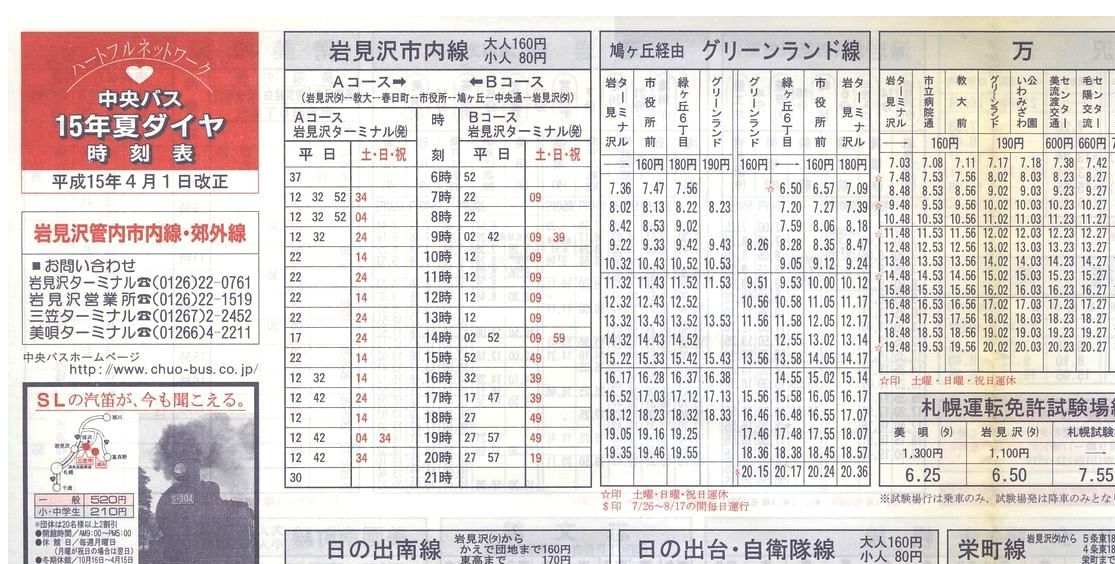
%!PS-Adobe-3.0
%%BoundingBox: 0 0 1115 564
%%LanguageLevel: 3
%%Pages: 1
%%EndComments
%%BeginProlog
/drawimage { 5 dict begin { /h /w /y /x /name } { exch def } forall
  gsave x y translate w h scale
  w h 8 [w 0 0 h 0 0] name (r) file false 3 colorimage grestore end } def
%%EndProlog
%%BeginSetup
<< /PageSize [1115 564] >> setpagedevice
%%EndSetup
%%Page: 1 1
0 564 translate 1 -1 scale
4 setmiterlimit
1 setgray
0 0 1115 564 rectfill
(images/1.raw) 8 16 1107 548 drawimage
showpage
%%EOF
